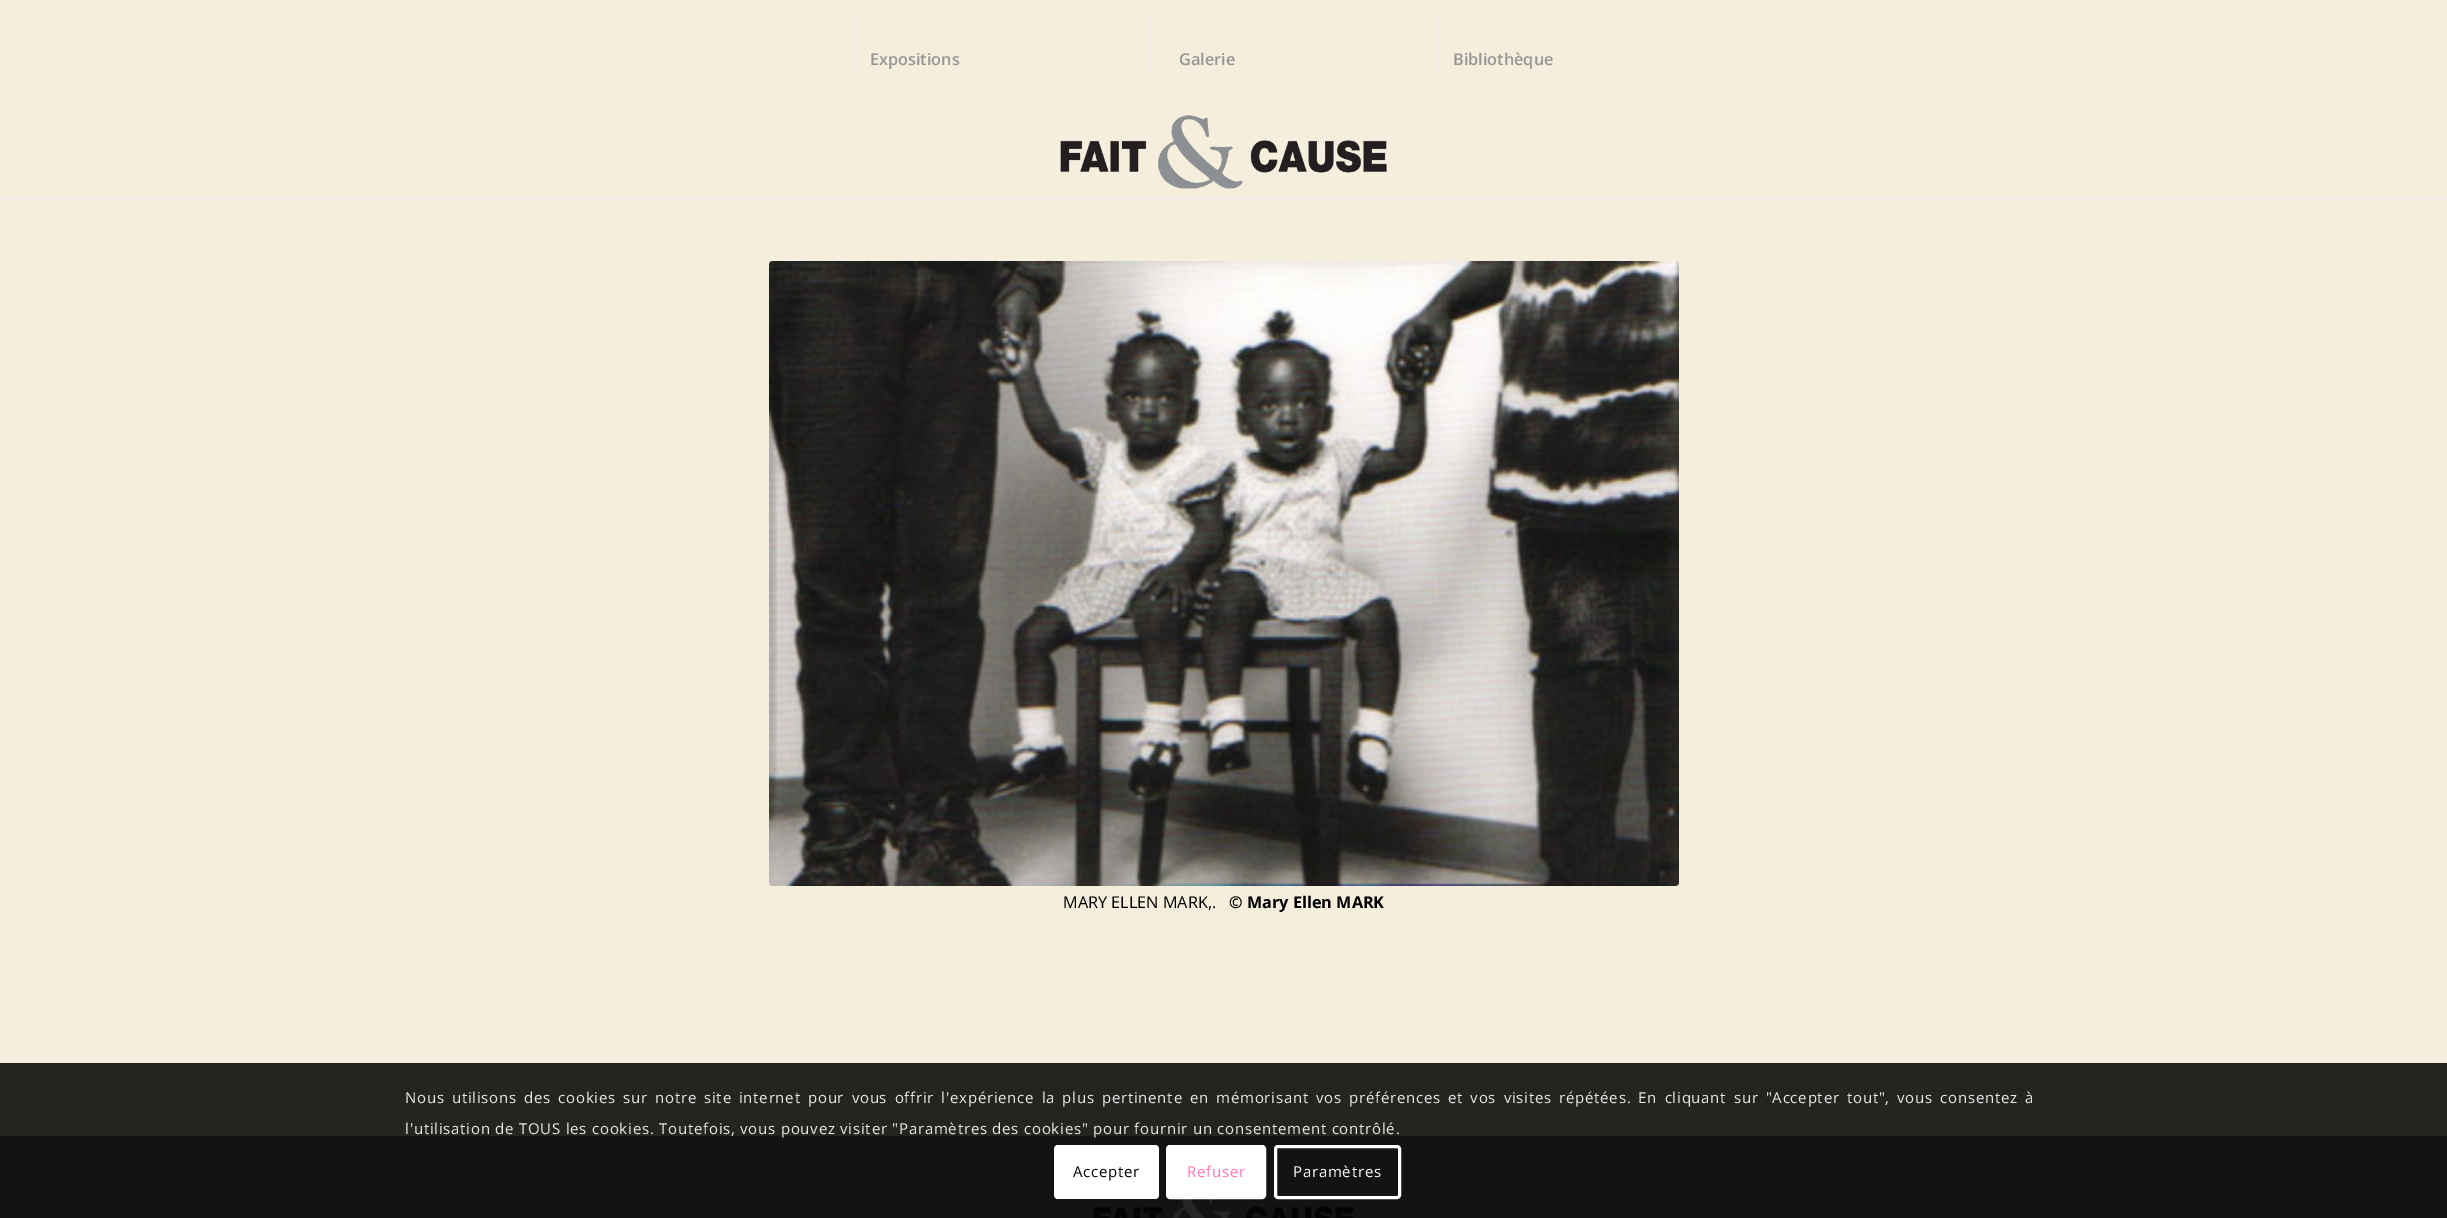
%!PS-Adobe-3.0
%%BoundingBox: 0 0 2447 1218
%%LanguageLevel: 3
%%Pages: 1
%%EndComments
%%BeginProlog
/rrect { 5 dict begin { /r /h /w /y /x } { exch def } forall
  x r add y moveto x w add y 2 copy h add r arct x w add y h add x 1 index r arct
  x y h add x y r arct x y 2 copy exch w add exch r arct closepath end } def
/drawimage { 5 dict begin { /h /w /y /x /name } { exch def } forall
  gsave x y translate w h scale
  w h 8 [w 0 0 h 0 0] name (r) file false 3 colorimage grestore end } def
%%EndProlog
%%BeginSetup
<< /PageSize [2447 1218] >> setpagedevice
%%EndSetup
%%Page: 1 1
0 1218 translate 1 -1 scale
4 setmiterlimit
0.961 0.933 0.863 setrgbcolor
0 0 2447 1218 rectfill
0.145 0.141 0.129 setrgbcolor
0 1063 2447 73 rectfill
0.922 setgray
854 13 1 62 rectfill
1150 13 1 62 rectfill
1438 13 1 62 rectfill
(images/1.raw) 1060 115 327 74 drawimage
0 198 2447 1 rectfill
(images/2.raw) 769 261 910 625 drawimage
0.075 0.075 0.071 setrgbcolor
0 1136 2447 82 rectfill
(images/3.raw) 1093 1199 261 19 drawimage
1 setgray
1054 1145 105 54 4 rrect fill
1167.5 1146.5 97 51 2.5 rrect gsave fill grestore
3 setlinewidth
stroke
1275.5 1146.5 124 51 2.5 rrect stroke
/OpenSans-SemiBold [16.25 0 0 -16.25 0 0] selectfont
0.588 setgray
870 65 moveto (Expositions) show
1179 65 moveto (Galerie) show
1453 65 moveto (Bibliothèque) show
/OpenSans-Regular [16.25 0 0 -16.25 0 0] selectfont
0 setgray
1063 908 moveto (MARY ELLEN MARK,.) show
/OpenSans-Bold [16.25 0 0 -16.25 0 0] selectfont
1229 908 moveto (© Mary Ellen MARK) show
/OpenSans-Regular [15 0 0 -15 0 0] selectfont
0.914 setgray
405 1103 moveto 2.5 0 32 0.75 0 (Nous utilisons des cookies sur notre site internet pour vous offrir l'expérience la plus pertinente en mémorisant vos préférences et vos visites répétées. En cliquant sur "Accepter tout", vous consentez à) awidthshow
405 1134 moveto 0.75 0 (l'utilisation de TOUS les cookies. Toutefois, vous pouvez visiter "Paramètres des cookies" pour fournir un consentement contrôlé.) ashow
0 setgray
1073 1177 moveto 0.75 0 (Accepter) ashow
1 0.459 0.71 setrgbcolor
1187 1177 moveto 0.75 0 (Refuser) ashow
1 setgray
1293 1177 moveto 0.75 0 (Paramètres) ashow
showpage
%%EOF
